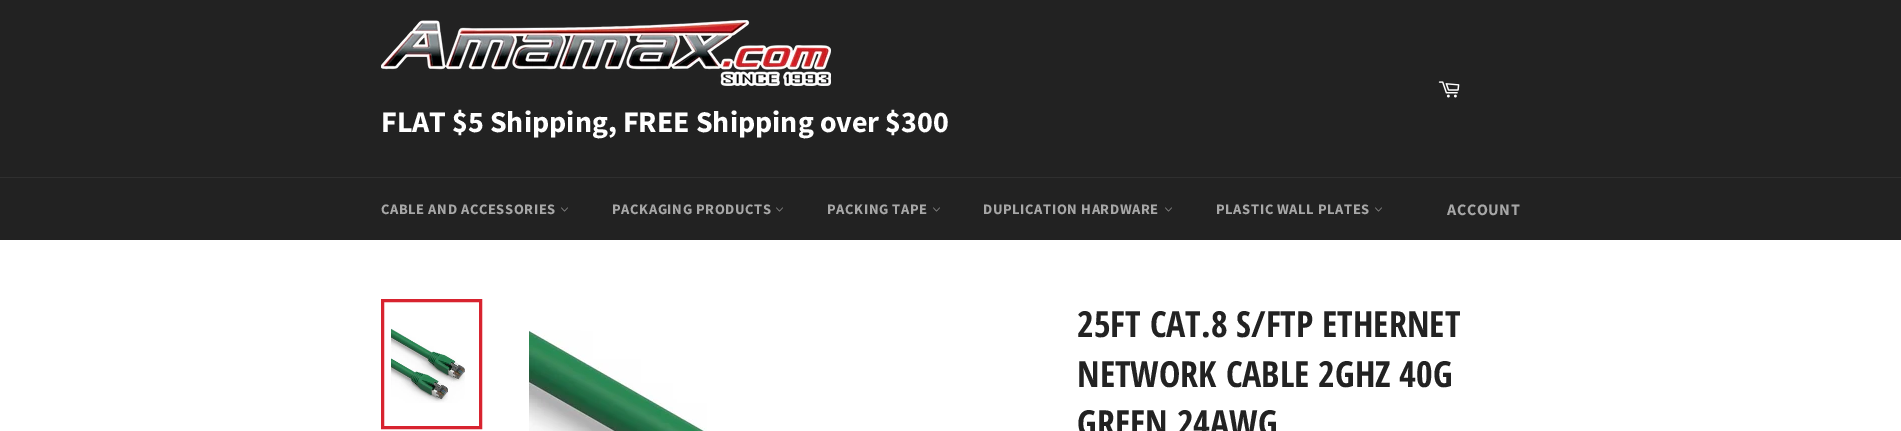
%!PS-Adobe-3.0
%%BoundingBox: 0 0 1901 431
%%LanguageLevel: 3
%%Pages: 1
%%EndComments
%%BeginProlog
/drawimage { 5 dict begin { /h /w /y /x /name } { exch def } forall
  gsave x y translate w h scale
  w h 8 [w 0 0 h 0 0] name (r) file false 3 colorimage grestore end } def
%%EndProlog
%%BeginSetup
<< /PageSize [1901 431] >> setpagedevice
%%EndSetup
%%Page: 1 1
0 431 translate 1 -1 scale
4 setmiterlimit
0.133 setgray
0 0 1901 431 rectfill
(images/1.raw) 1438 81 22 17 drawimage
(images/2.raw) 381 20 450 66 drawimage
0.184 setgray
0 177 1901 1 rectfill
(images/3.raw) 561 207 7 5 drawimage
(images/3.raw) 776 207 7 5 drawimage
(images/3.raw) 933 207 7 5 drawimage
(images/3.raw) 1165 207 7 5 drawimage
(images/3.raw) 1375 207 7 5 drawimage
1 setgray
0 240 1901 191 rectfill
(images/4.raw) 391 328 74 75 drawimage
0.847 0.137 0.184 setrgbcolor
3 setlinewidth
382.5 300.5 98 127 rectstroke
(images/5.raw) 529 330 178 101 drawimage
/SourceSansPro-Bold [30 0 0 -30 0 0] selectfont
1 setgray
381 132 moveto (FLAT $5 Shipping, FREE Shipping over $300) show
/SourceSansPro-Bold [14.5 0 0 -14.5 0 0] selectfont
0.655 setgray
381 214 moveto 0.6 0 (CABLE AND ACCESSORIES) ashow
612 214 moveto 0.6 0 (PACKAGING PRODUCTS) ashow
827 214 moveto 0.6 0 (PACKING TAPE) ashow
983 214 moveto 0.6 0 (DUPLICATION HARDWARE) ashow
1216 214 moveto 0.6 0 (PLASTIC WALL PLATES) ashow
/SourceSansPro-Bold [16 0 0 -16 0 0] selectfont
1447 215 moveto 0.6 0 (ACCOUNT) ashow
/OpenSansCondensed-Bold [36 0 0 -36 0 0] selectfont
0.133 setgray
1077 337 moveto (25FT CAT.8 S/FTP ETHERNET) show
1077 387 moveto (NETWORK CABLE 2GHZ 40G) show
1077 436 moveto (GREEN 24AWG) show
showpage
%%EOF
